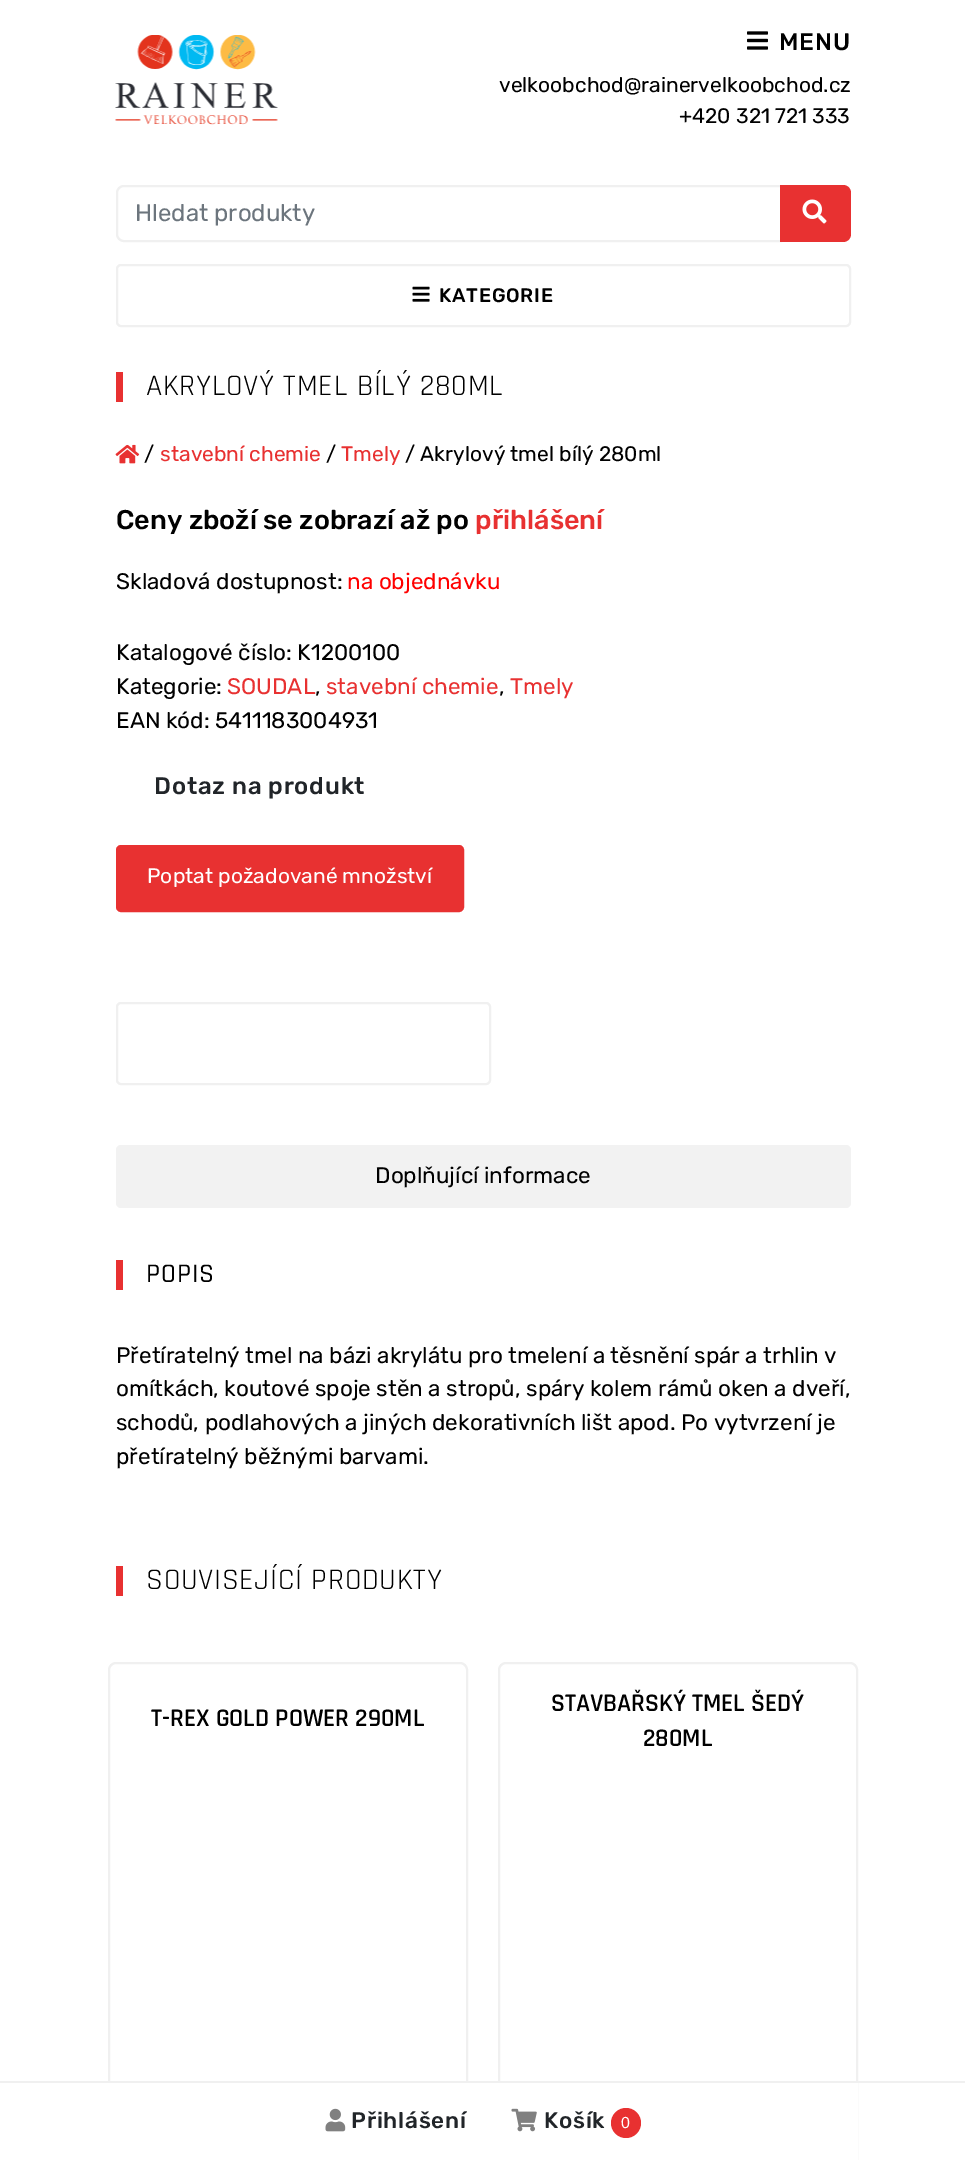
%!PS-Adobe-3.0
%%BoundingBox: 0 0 965 2160
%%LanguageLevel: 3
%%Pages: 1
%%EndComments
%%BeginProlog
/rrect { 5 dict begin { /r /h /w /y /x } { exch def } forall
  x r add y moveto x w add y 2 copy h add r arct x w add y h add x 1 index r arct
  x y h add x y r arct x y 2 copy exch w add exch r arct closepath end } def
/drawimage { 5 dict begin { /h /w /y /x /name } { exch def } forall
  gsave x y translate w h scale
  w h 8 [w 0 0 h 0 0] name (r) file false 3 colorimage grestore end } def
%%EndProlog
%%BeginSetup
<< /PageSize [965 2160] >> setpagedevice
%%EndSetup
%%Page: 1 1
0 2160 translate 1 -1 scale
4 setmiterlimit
1 setgray
0 0 965 2160 rectfill
(images/1.raw) 115 35 163 90 drawimage
(images/2.raw) 747 31 21 19 drawimage
0.941 setgray
2 setlinewidth
109 1663 358 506 7 rrect stroke
499 1663 358 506 7 rrect stroke
1 setgray
108 2083 750 77 rectfill
0.941 setgray
0 2081 965 2 rectfill
(images/3.raw) 325 2108 21 24 drawimage
(images/4.raw) 511 2108 26 24 drawimage
0.91 0.192 0.192 setrgbcolor
newpath 626 2123 15 0 360 arc closepath fill
0.941 setgray
newpath 124 186 moveto 781 186 lineto 781 241 lineto 124 241 lineto 120 241 117 238 117 234 curveto 117 193 lineto 117 189 120 186 124 186 curveto closepath stroke
0.91 0.192 0.192 setrgbcolor
newpath 780 185 moveto 843 185 lineto 847.5 185 851 188.5 851 193 curveto 851 234 lineto 851 238.5 847.5 242 843 242 curveto 780 242 lineto closepath fill
(images/5.raw) 802 199 25 25 drawimage
0.941 setgray
117 265 733 61 4 rrect stroke
(images/6.raw) 412 286 18 16 drawimage
0.91 0.192 0.192 setrgbcolor
116 372 7 30 rectfill
(images/7.raw) 115 444 25 20 drawimage
117 846 346 65 4 rrect gsave fill grestore
stroke
0.941 setgray
117 1003 373 81 4 rrect stroke
0.949 setgray
116 1145 735 63 5 rrect fill
0.91 0.192 0.192 setrgbcolor
116 1260 7 30 rectfill
116 1566 7 30 rectfill
/Rubik-Medium [24 0 0 -24 0 0] selectfont
0 setgray
779 50 moveto 0.75 0 (MENU) ashow
/Rubik-Light [21 0 0 -21 0 0] selectfont
499 92 moveto (velkoobchod@rainervelkoobchod.cz) show
679 123 moveto (+420 321 721 333) show
/Rubik-Medium [22.5 0 0 -22.5 0 0] selectfont
0.129 0.145 0.161 setrgbcolor
351 2128 moveto 0.75 0 (Přihlášení) ashow
544 2128 moveto 0.75 0 (Košík) ashow
/LiberationSans-Regular [16 0 0 -16 0 0] selectfont
1 setgray
621 2128 moveto 0.75 0 (0) ashow
/Rubik-Light [24 0 0 -24 0 0] selectfont
0.424 0.459 0.49 setrgbcolor
135 221 moveto (Hledat produkty) show
/Rubik-Medium [19.5 0 0 -19.5 0 0] selectfont
0 setgray
439 302 moveto 0.75 0 (KATEGORIE) ashow
/Rajdhani-Regular [30 0 0 -30 0 0] selectfont
146 395 moveto 0.75 0 (AKRYLOVÝ TMEL BÍLÝ 280ML) ashow
/Rubik-Light [21 0 0 -21 0 0] selectfont
144 461 moveto (/) show
0.91 0.192 0.192 setrgbcolor
160 461 moveto (stavební chemie) show
0 setgray
326 461 moveto (/) show
0.91 0.192 0.192 setrgbcolor
341 461 moveto (Tmely) show
0 setgray
405 461 moveto (/ Akrylový tmel bílý 280ml) show
/Rubik-Medium [27 0 0 -27 0 0] selectfont
116 529 moveto (Ceny zboží se zobrazí až po) show
0.91 0.192 0.192 setrgbcolor
475 529 moveto (přihlášení) show
/Rubik-Light [22.5 0 0 -22.5 0 0] selectfont
0 setgray
116 589 moveto (Skladová dostupnost:) show
1 0 0 setrgbcolor
347 589 moveto (na objednávku) show
0 setgray
116 660 moveto (Katalogové číslo: K1200100) show
116 694 moveto (Kategorie:) show
0.91 0.192 0.192 setrgbcolor
227 694 moveto (SOUDAL) show
0 setgray
315 694 moveto (,) show
0.91 0.192 0.192 setrgbcolor
326 694 moveto (stavební chemie) show
0 setgray
499 694 moveto (,) show
0.91 0.192 0.192 setrgbcolor
510 694 moveto (Tmely) show
0 setgray
116 728 moveto (EAN kód: 5411183004931) show
/Rubik-Medium [24 0 0 -24 0 0] selectfont
0.129 0.145 0.161 setrgbcolor
154 794 moveto 0.75 0 (Dotaz na produkt) ashow
/Rubik-Light [21 0 0 -21 0 0] selectfont
1 setgray
147 883 moveto (Poptat požadované množství) show
/Rubik-Light [22.5 0 0 -22.5 0 0] selectfont
0 setgray
375 1183 moveto (Doplňující informace) show
/Rajdhani-Medium [27 0 0 -27 0 0] selectfont
146 1282 moveto 0.75 0 (POPIS) ashow
/Rubik-Light [22.5 0 0 -22.5 0 0] selectfont
116 1363 moveto (Přetíratelný tmel na bázi akrylátu pro tmelení a těsnění spár a trhlin v) show
116 1396 moveto (omítkách, koutové spoje stěn a stropů, spáry kolem rámů oken a dveří,) show
116 1430 moveto (schodů, podlahových a jiných dekorativních lišt apod. Po vytvrzení je) show
116 1464 moveto (přetíratelný běžnými barvami.) show
/Rajdhani-Regular [30 0 0 -30 0 0] selectfont
146 1589 moveto 0.75 0 (SOUVISEJÍCÍ PRODUKTY) ashow
/Rajdhani-SemiBold [25.5 0 0 -25.5 0 0] selectfont
151 1726 moveto (T-REX GOLD POWER 290ML) show
551 1711 moveto (STAVBAŘSKÝ TMEL ŠEDÝ) show
643 1746 moveto (280ML) show
showpage
%%EOF
